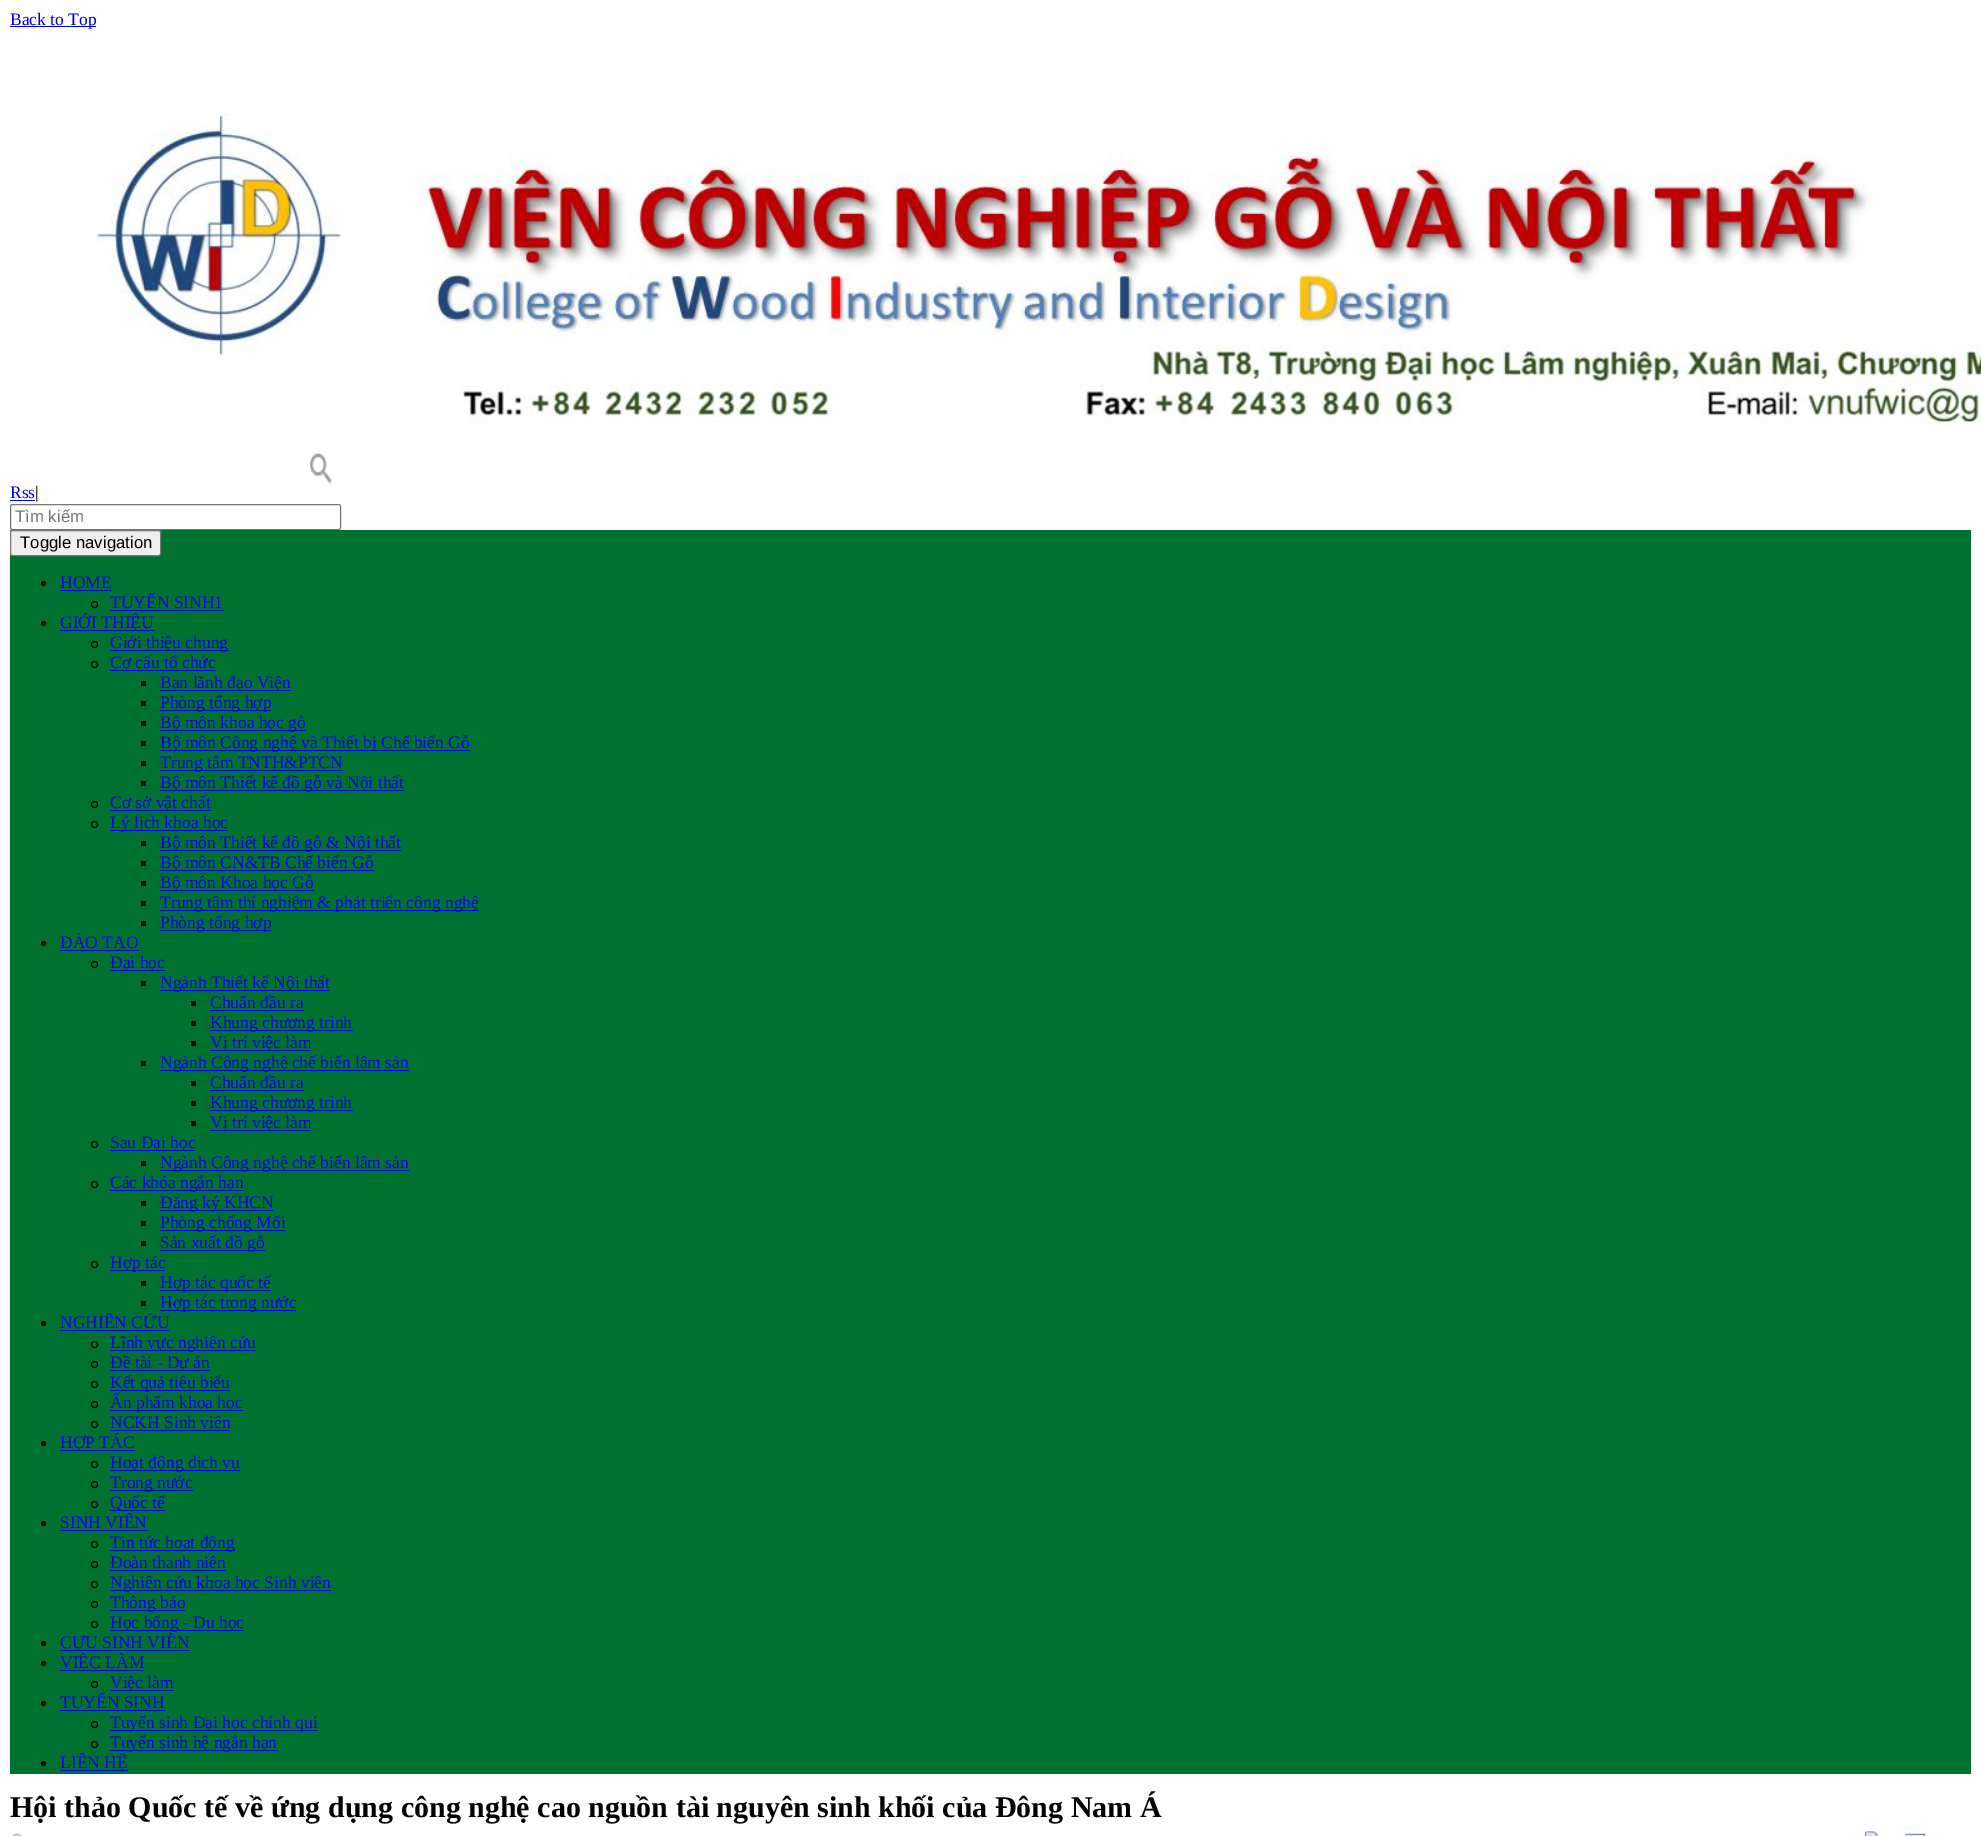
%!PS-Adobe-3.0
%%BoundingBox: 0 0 1981 1836
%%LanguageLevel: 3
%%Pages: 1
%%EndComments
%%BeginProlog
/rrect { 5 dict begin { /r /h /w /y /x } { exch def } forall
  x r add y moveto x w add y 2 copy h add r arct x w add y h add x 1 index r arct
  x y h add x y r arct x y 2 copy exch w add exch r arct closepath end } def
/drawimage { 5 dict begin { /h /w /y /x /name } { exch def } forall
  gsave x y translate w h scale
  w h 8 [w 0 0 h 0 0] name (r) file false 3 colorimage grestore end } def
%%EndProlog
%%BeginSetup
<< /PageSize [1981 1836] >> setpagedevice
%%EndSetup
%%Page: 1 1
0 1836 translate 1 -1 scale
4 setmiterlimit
1 setgray
0 0 1981 1836 rectfill
0 0 0.933 setrgbcolor
10 26 86 1 rectfill
(images/1.raw) 90 114 1891 313 drawimage
10 500 25 1 rectfill
(images/2.raw) 310 453 22 31 drawimage
0.463 setgray
10.5 504.5 330 25 2 rrect stroke
0 0.443 0.184 setrgbcolor
10 530 1961 1244 rectfill
0.937 setgray
10.5 530.5 150 25 2 rrect gsave fill grestore
0.463 setgray
stroke
0 setgray
newpath 43.5 583.5 2.5 0 360 arc closepath fill
0 0 0.933 setrgbcolor
60 590 51 1 rectfill
0 setgray
newpath 94.5 604.5 3 0 360 arc closepath stroke
0 0 0.933 setrgbcolor
110 610 114 1 rectfill
0 setgray
newpath 43.5 623.5 2.5 0 360 arc closepath fill
0 0 0.933 setrgbcolor
60 630 94 1 rectfill
0 setgray
newpath 94.5 644.5 3 0 360 arc closepath stroke
0 0 0.933 setrgbcolor
110 650 119 1 rectfill
0 setgray
newpath 94.5 664.5 3 0 360 arc closepath stroke
0 0 0.933 setrgbcolor
110 670 106 1 rectfill
0 setgray
141 681 5 5 rectfill
0 0 0.933 setrgbcolor
160 690 131 1 rectfill
0 setgray
141 701 5 5 rectfill
0 0 0.933 setrgbcolor
160 710 111 1 rectfill
0 setgray
141 721 5 5 rectfill
0 0 0.933 setrgbcolor
160 730 146 1 rectfill
0 setgray
141 741 5 5 rectfill
0 0 0.933 setrgbcolor
160 750 310 1 rectfill
0 setgray
141 761 5 5 rectfill
0 0 0.933 setrgbcolor
160 770 183 1 rectfill
0 setgray
141 781 5 5 rectfill
0 0 0.933 setrgbcolor
160 790 244 1 rectfill
0 setgray
newpath 94.5 804.5 3 0 360 arc closepath stroke
0 0 0.933 setrgbcolor
110 810 101 1 rectfill
0 setgray
newpath 94.5 824.5 3 0 360 arc closepath stroke
0 0 0.933 setrgbcolor
110 830 118 1 rectfill
0 setgray
141 841 5 5 rectfill
0 0 0.933 setrgbcolor
160 850 241 1 rectfill
0 setgray
141 861 5 5 rectfill
0 0 0.933 setrgbcolor
160 870 214 1 rectfill
0 setgray
141 881 5 5 rectfill
0 0 0.933 setrgbcolor
160 890 154 1 rectfill
0 setgray
141 901 5 5 rectfill
0 0 0.933 setrgbcolor
160 910 319 1 rectfill
0 setgray
141 921 5 5 rectfill
0 0 0.933 setrgbcolor
160 930 111 1 rectfill
0 setgray
newpath 43.5 943.5 2.5 0 360 arc closepath fill
0 0 0.933 setrgbcolor
60 950 79 1 rectfill
0 setgray
newpath 94.5 964.5 3 0 360 arc closepath stroke
0 0 0.933 setrgbcolor
110 970 55 1 rectfill
0 setgray
141 981 5 5 rectfill
0 0 0.933 setrgbcolor
160 990 170 1 rectfill
0 setgray
191 1001 5 5 rectfill
0 0 0.933 setrgbcolor
210 1010 94 1 rectfill
0 setgray
191 1021 5 5 rectfill
0 0 0.933 setrgbcolor
210 1030 143 1 rectfill
0 setgray
191 1041 5 5 rectfill
0 0 0.933 setrgbcolor
210 1050 101 1 rectfill
0 setgray
141 1061 5 5 rectfill
0 0 0.933 setrgbcolor
160 1070 249 1 rectfill
0 setgray
191 1081 5 5 rectfill
0 0 0.933 setrgbcolor
210 1090 94 1 rectfill
0 setgray
191 1101 5 5 rectfill
0 0 0.933 setrgbcolor
210 1110 143 1 rectfill
0 setgray
191 1121 5 5 rectfill
0 0 0.933 setrgbcolor
210 1130 101 1 rectfill
0 setgray
newpath 94.5 1144.5 3 0 360 arc closepath stroke
0 0 0.933 setrgbcolor
110 1150 85 1 rectfill
0 setgray
141 1161 5 5 rectfill
0 0 0.933 setrgbcolor
160 1170 249 1 rectfill
0 setgray
newpath 94.5 1184.5 3 0 360 arc closepath stroke
0 0 0.933 setrgbcolor
110 1190 134 1 rectfill
0 setgray
141 1201 5 5 rectfill
0 0 0.933 setrgbcolor
160 1210 114 1 rectfill
0 setgray
141 1221 5 5 rectfill
0 0 0.933 setrgbcolor
160 1230 125 1 rectfill
0 setgray
141 1241 5 5 rectfill
0 0 0.933 setrgbcolor
160 1250 105 1 rectfill
0 setgray
newpath 94.5 1264.5 3 0 360 arc closepath stroke
0 0 0.933 setrgbcolor
110 1270 55 1 rectfill
0 setgray
141 1281 5 5 rectfill
0 0 0.933 setrgbcolor
160 1290 111 1 rectfill
0 setgray
141 1301 5 5 rectfill
0 0 0.933 setrgbcolor
160 1310 136 1 rectfill
0 setgray
newpath 43.5 1323.5 2.5 0 360 arc closepath fill
0 0 0.933 setrgbcolor
60 1330 109 1 rectfill
0 setgray
newpath 94.5 1344.5 3 0 360 arc closepath stroke
0 0 0.933 setrgbcolor
110 1350 146 1 rectfill
0 setgray
newpath 94.5 1364.5 3 0 360 arc closepath stroke
0 0 0.933 setrgbcolor
110 1370 100 1 rectfill
0 setgray
newpath 94.5 1384.5 3 0 360 arc closepath stroke
0 0 0.933 setrgbcolor
110 1390 120 1 rectfill
0 setgray
newpath 94.5 1404.5 3 0 360 arc closepath stroke
0 0 0.933 setrgbcolor
110 1410 133 1 rectfill
0 setgray
newpath 94.5 1424.5 3 0 360 arc closepath stroke
0 0 0.933 setrgbcolor
110 1430 120 1 rectfill
0 setgray
newpath 43.5 1443.5 2.5 0 360 arc closepath fill
0 0 0.933 setrgbcolor
60 1450 75 1 rectfill
0 setgray
newpath 94.5 1464.5 3 0 360 arc closepath stroke
0 0 0.933 setrgbcolor
110 1470 130 1 rectfill
0 setgray
newpath 94.5 1484.5 3 0 360 arc closepath stroke
0 0 0.933 setrgbcolor
110 1490 83 1 rectfill
0 setgray
newpath 94.5 1504.5 3 0 360 arc closepath stroke
0 0 0.933 setrgbcolor
110 1510 55 1 rectfill
0 setgray
newpath 43.5 1523.5 2.5 0 360 arc closepath fill
0 0 0.933 setrgbcolor
60 1530 88 1 rectfill
0 setgray
newpath 94.5 1544.5 3 0 360 arc closepath stroke
0 0 0.933 setrgbcolor
110 1550 125 1 rectfill
0 setgray
newpath 94.5 1564.5 3 0 360 arc closepath stroke
0 0 0.933 setrgbcolor
110 1570 116 1 rectfill
0 setgray
newpath 94.5 1584.5 3 0 360 arc closepath stroke
0 0 0.933 setrgbcolor
110 1590 221 1 rectfill
0 setgray
newpath 94.5 1604.5 3 0 360 arc closepath stroke
0 0 0.933 setrgbcolor
110 1610 75 1 rectfill
0 setgray
newpath 94.5 1624.5 3 0 360 arc closepath stroke
0 0 0.933 setrgbcolor
110 1630 134 1 rectfill
0 setgray
newpath 43.5 1643.5 2.5 0 360 arc closepath fill
0 0 0.933 setrgbcolor
60 1650 129 1 rectfill
0 setgray
newpath 43.5 1663.5 2.5 0 360 arc closepath fill
0 0 0.933 setrgbcolor
60 1670 84 1 rectfill
0 setgray
newpath 94.5 1684.5 3 0 360 arc closepath stroke
0 0 0.933 setrgbcolor
110 1690 64 1 rectfill
0 setgray
newpath 43.5 1703.5 2.5 0 360 arc closepath fill
0 0 0.933 setrgbcolor
60 1710 105 1 rectfill
0 setgray
newpath 94.5 1724.5 3 0 360 arc closepath stroke
0 0 0.933 setrgbcolor
110 1730 208 1 rectfill
0 setgray
newpath 94.5 1744.5 3 0 360 arc closepath stroke
0 0 0.933 setrgbcolor
110 1750 168 1 rectfill
0 setgray
newpath 43.5 1763.5 2.5 0 360 arc closepath fill
0 0 0.933 setrgbcolor
60 1770 68 1 rectfill
(images/3.raw) 12 1833 11 3 drawimage
(images/4.raw) 1864 1831 14 5 drawimage
(images/5.raw) 1905 1833 20 3 drawimage
/LiberationSerif-Regular [17.5 0 0 -17.5 0 0] selectfont
10 25 moveto (Back to Top) show
10 498 moveto (Rss) show
0 setgray
35 498 moveto (|) show
/LiberationSans-Regular [16.75 0 0 -16.75 0 0] selectfont
0.459 setgray
15 522 moveto (Tìm kiếm) show
0 setgray
20 548 moveto (Toggle navigation) show
/LiberationSerif-Regular [17.5 0 0 -17.5 0 0] selectfont
0 0 0.933 setrgbcolor
60 588 moveto (HOME) show
110 608 moveto (TUYỂN SINH1) show
60 628 moveto (GIỚI THIỆU) show
110 648 moveto (Giới thiệu chung) show
110 668 moveto (Cơ cấu tổ chức) show
160 688 moveto (Ban lãnh đạo Viện) show
160 708 moveto (Phòng tổng hợp) show
160 728 moveto (Bộ môn khoa học gỗ) show
160 748 moveto (Bộ môn Công nghệ và Thiết bị Chế biến Gỗ) show
160 768 moveto (Trung tâm TNTH&PTCN) show
160 788 moveto (Bộ môn Thiết kế đồ gỗ và Nội thất) show
110 808 moveto (Cơ sở vật chất) show
110 828 moveto (Lý lịch khoa học) show
160 848 moveto (Bộ môn Thiết kế đồ gỗ & Nội thất) show
160 868 moveto (Bộ môn CN&TB Chế biến Gỗ) show
160 888 moveto (Bộ môn Khoa học Gỗ) show
160 908 moveto (Trung tâm thí nghiệm & phát triển công nghệ) show
160 928 moveto (Phòng tổng hợp) show
60 948 moveto (ĐÀO TẠO) show
110 968 moveto (Đại học) show
160 988 moveto (Ngành Thiết kế Nội thất) show
210 1008 moveto (Chuẩn đầu ra) show
210 1028 moveto (Khung chương trình) show
210 1048 moveto (Vị trí việc làm) show
160 1068 moveto (Ngành Công nghệ chế biến lâm sản) show
210 1088 moveto (Chuẩn đầu ra) show
210 1108 moveto (Khung chương trình) show
210 1128 moveto (Vị trí việc làm) show
110 1148 moveto (Sau Đại học) show
160 1168 moveto (Ngành Công nghệ chế biến lâm sản) show
110 1188 moveto (Các khóa ngắn hạn) show
160 1208 moveto (Đăng ký KHCN) show
160 1228 moveto (Phòng chống Mối) show
160 1248 moveto (Sản xuất đồ gỗ) show
110 1268 moveto (Hợp tác) show
160 1288 moveto (Hợp tác quốc tế) show
160 1308 moveto (Hợp tác trong nước) show
60 1328 moveto (NGHIÊN CỨU) show
110 1348 moveto (Lĩnh vực nghiên cứu) show
110 1368 moveto (Đề tài - Dự án) show
110 1388 moveto (Kết quả tiêu biểu) show
110 1408 moveto (Ấn phẩm khoa học) show
110 1428 moveto (NCKH Sinh viên) show
60 1448 moveto (HỢP TÁC) show
110 1468 moveto (Hoạt động dịch vụ) show
110 1488 moveto (Trong nước) show
110 1508 moveto (Quốc tế) show
60 1528 moveto (SINH VIÊN) show
110 1548 moveto (Tin tức hoạt động) show
110 1568 moveto (Đoàn thanh niên) show
110 1588 moveto (Nghiên cứu khoa học Sinh viên) show
110 1608 moveto (Thông báo) show
110 1628 moveto (Học bổng - Du học) show
60 1648 moveto (CỰU SINH VIÊN) show
60 1668 moveto (VIỆC LÀM) show
110 1688 moveto (Việc làm) show
60 1708 moveto (TUYỂN SINH) show
110 1728 moveto (Tuyển sinh Đại học chính qui) show
110 1748 moveto (Tuyển sinh hệ ngắn hạn) show
60 1768 moveto (LIÊN HỆ) show
/LiberationSerif-Bold [30 0 0 -30 0 0] selectfont
0 setgray
10 1817 moveto (Hội thảo Quốc tế về ứng dụng công nghệ cao nguồn tài nguyên sinh khối của Đông Nam Á) show
showpage
%%EOF
